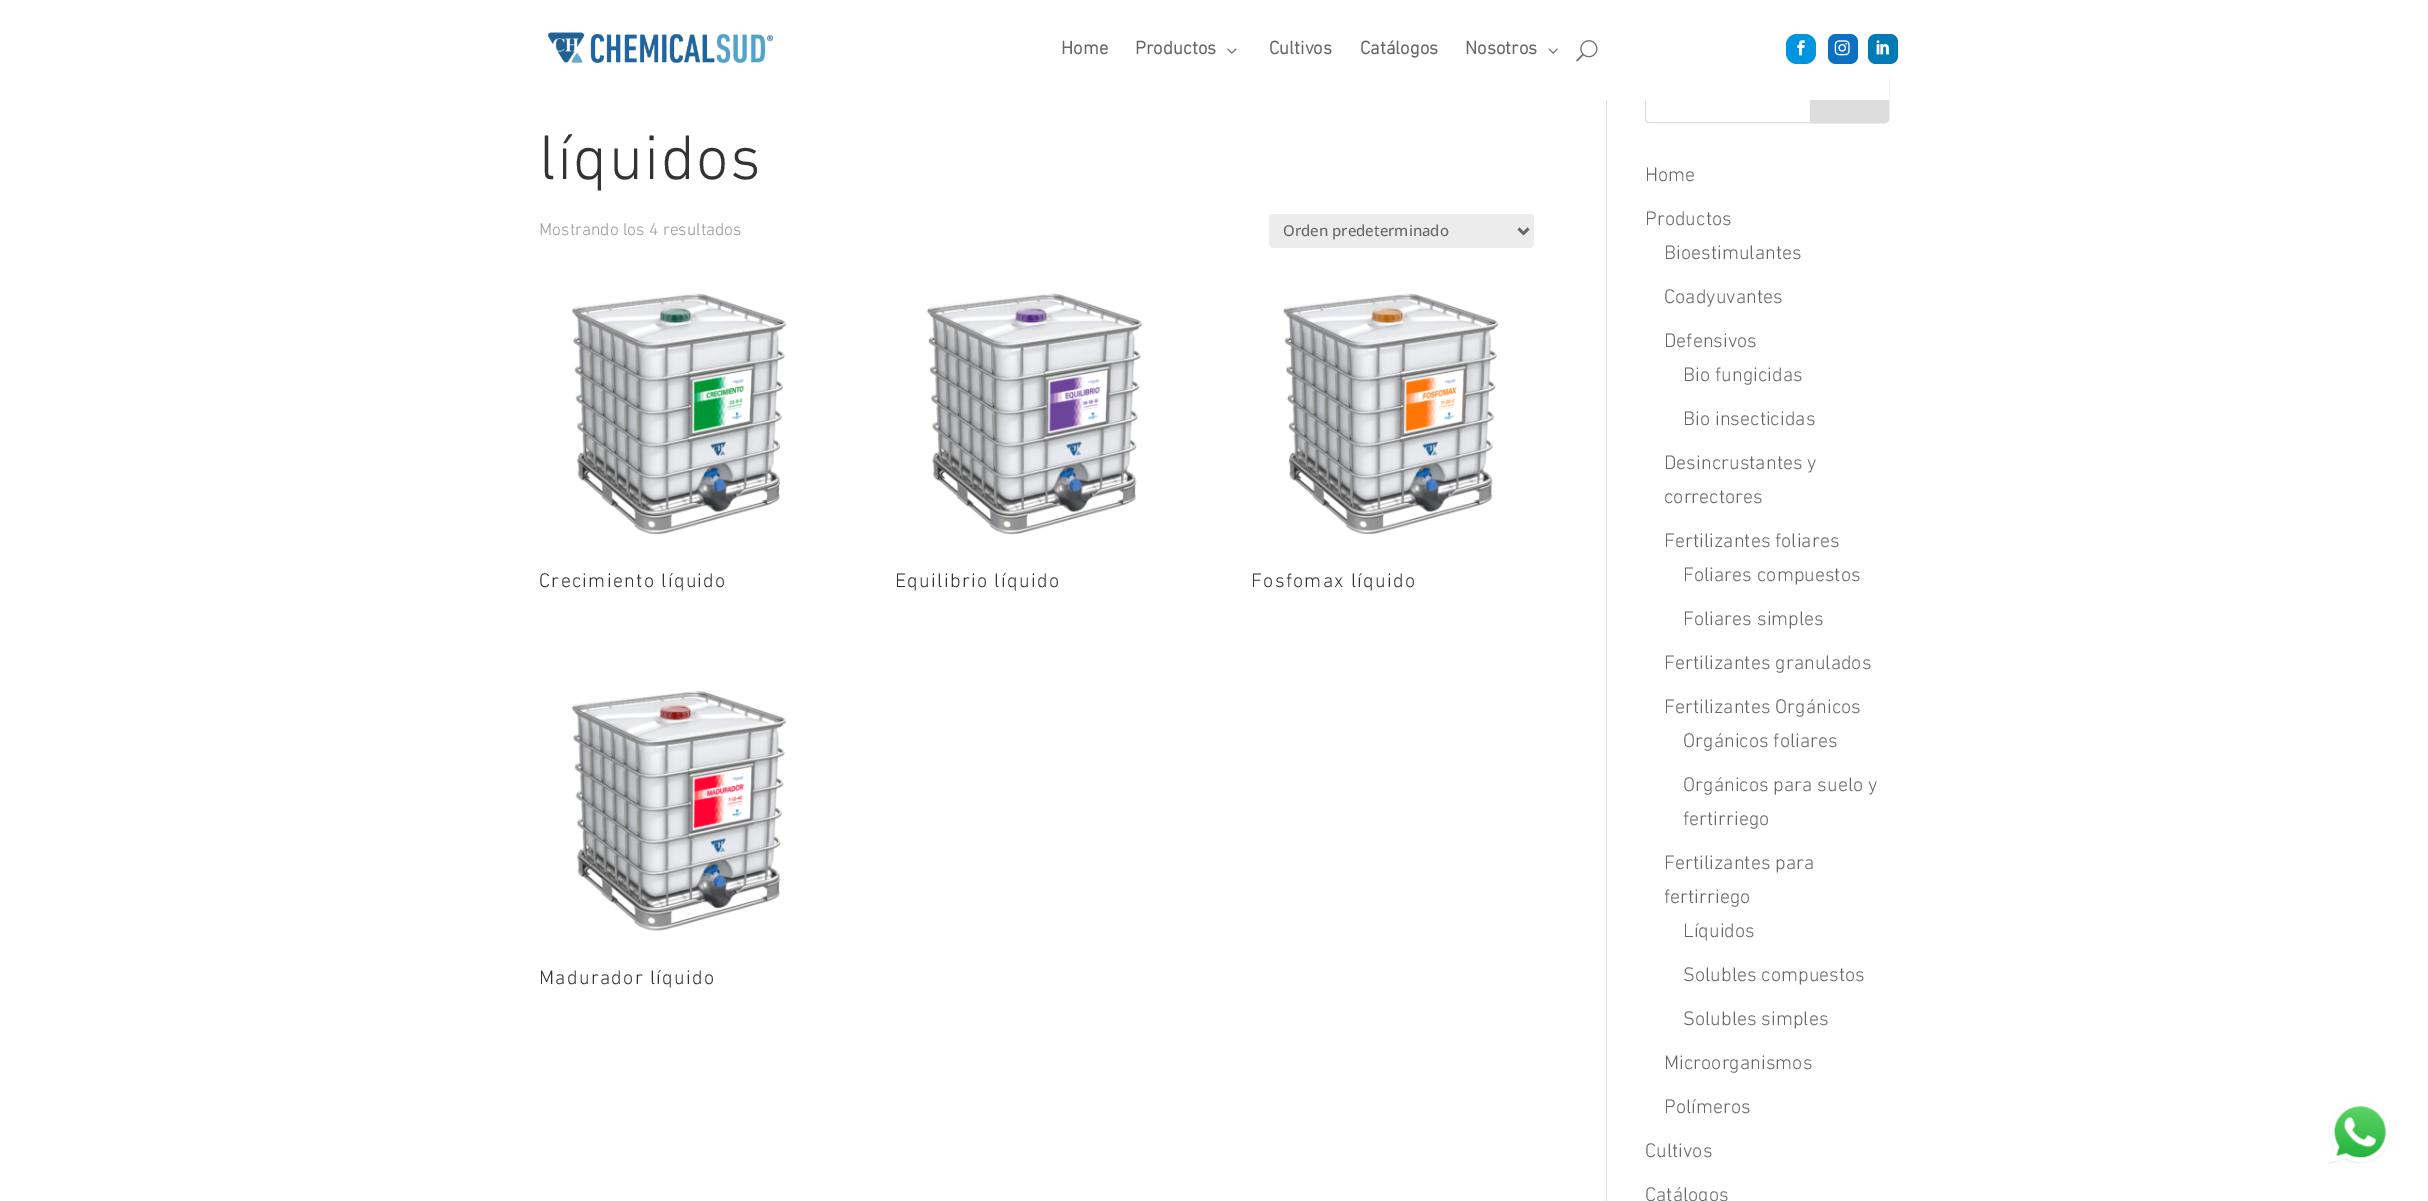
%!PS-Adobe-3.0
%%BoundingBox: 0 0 2428 1201
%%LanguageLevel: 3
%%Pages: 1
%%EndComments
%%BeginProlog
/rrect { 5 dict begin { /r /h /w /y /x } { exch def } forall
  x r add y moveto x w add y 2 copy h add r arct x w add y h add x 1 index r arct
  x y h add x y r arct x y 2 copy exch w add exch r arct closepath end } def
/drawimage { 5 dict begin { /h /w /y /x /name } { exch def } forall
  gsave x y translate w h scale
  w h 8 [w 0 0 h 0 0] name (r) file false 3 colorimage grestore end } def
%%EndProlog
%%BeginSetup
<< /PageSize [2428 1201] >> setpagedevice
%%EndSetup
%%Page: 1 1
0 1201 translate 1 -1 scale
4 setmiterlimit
1 setgray
0 0 2428 1201 rectfill
0.867 setgray
1645.5 73.5 243 49 3.5 rrect stroke
newpath 1810.5 73.5 moveto 1885 73.5 lineto 1887 73.5 1888.5 75 1888.5 77 curveto 1888.5 119 lineto 1888.5 121 1887 122.5 1885 122.5 curveto 1810.5 122.5 lineto closepath gsave fill grestore
stroke
1 setgray
1645 73 244 27 rectfill
(images/1.raw) 547 32 227 31 drawimage
(images/2.raw) 1227 48 10 6 drawimage
(images/3.raw) 1548 48 10 6 drawimage
(images/4.raw) 1576 40 22 22 drawimage
0 0.584 0.878 setrgbcolor
1786 34 30 30 11 rrect fill
(images/5.raw) 1797 40 8 16 drawimage
0.047 0.443 0.765 setrgbcolor
1828 34 30 30 8 rrect fill
(images/6.raw) 1834 40 16 16 drawimage
0 0.482 0.714 setrgbcolor
1868 34 30 30 8 rrect fill
(images/7.raw) 1876 40 13 15 drawimage
0.886 setgray
1606 100 1 1101 rectfill
0.925 setgray
1269 214 265 34 4 rrect fill
0.4 setgray
2.5 setlinewidth
newpath 1518.5 228.5 moveto 1523.5 233.5 lineto 1528.5 228.5 lineto stroke
(images/8.raw) 572 293 215 242 drawimage
(images/9.raw) 927 293 216 242 drawimage
(images/10.raw) 1283 293 216 242 drawimage
(images/11.raw) 572 690 215 241 drawimage
(images/12.raw) 2328 1101 63 63 drawimage
/DINNext-Bold [18.75 0 0 -18.75 0 0] selectfont
1061 54 moveto (Home) show
1135 54 moveto (Productos) show
1269 54 moveto (Cultivos) show
1360 54 moveto (Catálogos) show
1465 54 moveto (Nosotros) show
/DINNext-Light [64 0 0 -64 0 0] selectfont
0.2 setgray
539 179 moveto 1.25 0 (líquidos) ashow
/DINNext-Light [17.5 0 0 -17.5 0 0] selectfont
0.6 setgray
539 235 moveto (Mostrando los 4 resultados) show
/OpenSans-Medium [15 0 0 -15 0 0] selectfont
0.4 setgray
1283 236 moveto (Orden predeterminado) show
/DINNext-Light [20 0 0 -20 0 0] selectfont
0.2 setgray
539 587 moveto 1.25 0 (Crecimiento líquido) ashow
895 587 moveto 1.25 0 (Equilibrio líquido) ashow
1251 587 moveto 1.25 0 (Fosfomax líquido) ashow
539 984 moveto 1.25 0 (Madurador líquido) ashow
0.4 setgray
1645 181 moveto (Home) show
1645 225 moveto (Productos) show
1664 259 moveto (Bioestimulantes) show
1664 303 moveto (Coadyuvantes) show
1664 347 moveto (Defensivos) show
1683 381 moveto (Bio fungicidas) show
1683 425 moveto (Bio insecticidas) show
1664 469 moveto (Desincrustantes y) show
1664 503 moveto (correctores) show
1664 547 moveto (Fertilizantes foliares) show
1683 581 moveto (Foliares compuestos) show
1683 625 moveto (Foliares simples) show
1664 669 moveto (Fertilizantes granulados) show
1664 713 moveto (Fertilizantes Orgánicos) show
1683 747 moveto (Orgánicos foliares) show
1683 791 moveto (Orgánicos para suelo y) show
1683 825 moveto (fertirriego) show
1664 869 moveto (Fertilizantes para) show
1664 903 moveto (fertirriego) show
1683 937 moveto (Líquidos) show
1683 981 moveto (Solubles compuestos) show
1683 1025 moveto (Solubles simples) show
1664 1069 moveto (Microorganismos) show
1664 1113 moveto (Polímeros) show
1645 1157 moveto (Cultivos) show
1645 1201 moveto (Catálogos) show
showpage
%%EOF
